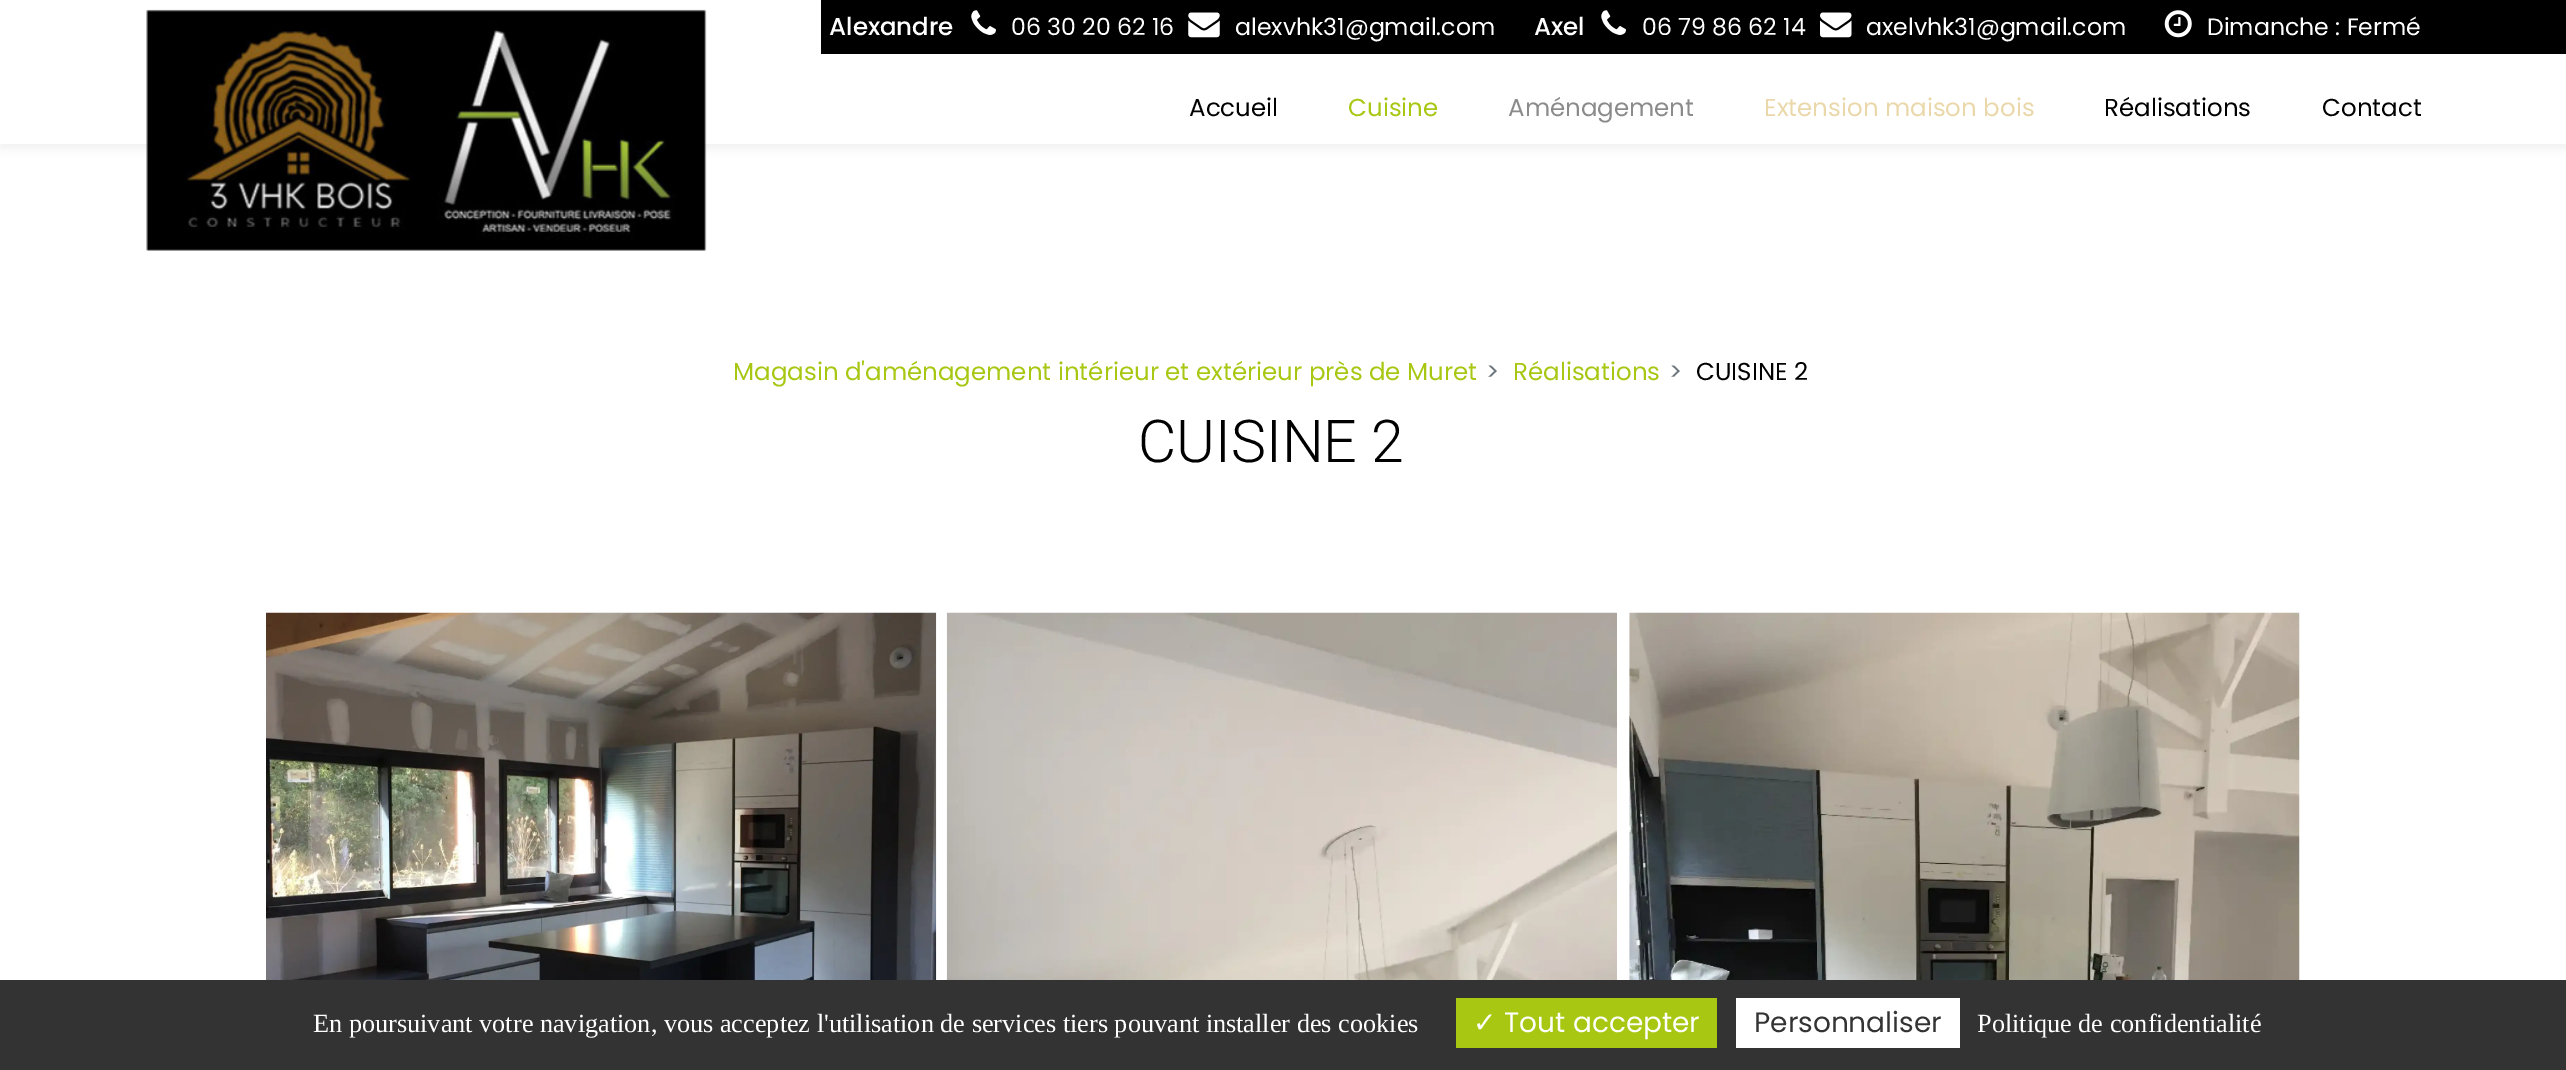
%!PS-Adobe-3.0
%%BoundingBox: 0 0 2566 1070
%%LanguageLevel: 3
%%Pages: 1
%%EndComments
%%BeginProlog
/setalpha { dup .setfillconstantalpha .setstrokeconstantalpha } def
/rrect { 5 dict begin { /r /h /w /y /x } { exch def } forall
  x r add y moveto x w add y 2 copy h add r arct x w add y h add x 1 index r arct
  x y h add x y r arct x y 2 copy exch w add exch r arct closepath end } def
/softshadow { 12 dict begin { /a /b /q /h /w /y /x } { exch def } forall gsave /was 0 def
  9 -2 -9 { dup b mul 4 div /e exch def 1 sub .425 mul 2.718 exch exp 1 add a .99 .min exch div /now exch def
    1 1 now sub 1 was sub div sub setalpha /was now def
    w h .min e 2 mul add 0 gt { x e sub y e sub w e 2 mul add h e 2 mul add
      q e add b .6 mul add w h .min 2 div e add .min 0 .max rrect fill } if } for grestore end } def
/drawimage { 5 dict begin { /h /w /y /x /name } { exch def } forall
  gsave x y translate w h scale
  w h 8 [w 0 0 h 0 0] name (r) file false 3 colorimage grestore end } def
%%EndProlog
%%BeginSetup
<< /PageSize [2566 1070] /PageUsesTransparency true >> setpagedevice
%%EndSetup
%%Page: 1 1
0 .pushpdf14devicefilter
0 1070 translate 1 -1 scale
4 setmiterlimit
1 setgray
0 0 2566 1070 rectfill
gsave
newpath 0 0 moveto 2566 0 lineto 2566 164 lineto 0 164 lineto closepath 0 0 moveto 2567 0 lineto 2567 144 lineto 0 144 lineto closepath eoclip newpath
0 setgray
0 5 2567 144 0 4.5 0.05 softshadow
grestore
(images/1.raw) 146 9 561 242 drawimage
0 setgray
821 0 1745 54 rectfill
(images/2.raw) 971 10 25 25 drawimage
(images/3.raw) 1188 12 32 26 drawimage
(images/4.raw) 1601 10 25 25 drawimage
(images/5.raw) 1820 12 32 26 drawimage
(images/6.raw) 2164 10 28 28 drawimage
(images/7.raw) 266 612 671 368 drawimage
(images/8.raw) 946 612 671 368 drawimage
(images/9.raw) 1629 612 671 368 drawimage
0.2 setgray
0 980 2566 90 rectfill
0.655 0.78 0.075 setrgbcolor
1456 998 261 50 rectfill
1 setgray
1736 998 224 50 rectfill
/Poppins-Medium [24.5 0 0 -24.5 0 0] selectfont
829 35 moveto (Alexandre) show
/Poppins-Regular [23.6 0 0 -23.6 0 0] selectfont
1011 35 moveto (06 30 20 62 16) show
1235 35 moveto (alexvhk31@gmail.com) show
/Poppins-Medium [24.5 0 0 -24.5 0 0] selectfont
1534 35 moveto (Axel) show
/Poppins-Regular [23.6 0 0 -23.6 0 0] selectfont
1642 35 moveto (06 79 86 62 14) show
1866 35 moveto (axelvhk31@gmail.com) show
2207 35 moveto (Dimanche : Fermé) show
/Poppins-Regular [24.5 0 0 -24.5 0 0] selectfont
0 setgray
1189 116 moveto (Accueil) show
0.655 0.78 0.075 setrgbcolor
1348 116 moveto (Cuisine) show
0.545 setgray
1508 116 moveto (Aménagement) show
0.918 0.847 0.667 setrgbcolor
1764 116 moveto (Extension maison bois) show
0 setgray
2104 116 moveto (Réalisations) show
2322 116 moveto (Contact) show
0.655 0.78 0.075 setrgbcolor
733 380 moveto (Magasin d'aménagement intérieur et extérieur près de Muret) show
0.424 0.459 0.49 setrgbcolor
1486 380 moveto (>) show
0.655 0.78 0.075 setrgbcolor
1513 380 moveto (Réalisations) show
0.424 0.459 0.49 setrgbcolor
1669 380 moveto (>) show
0 setgray
1696 380 moveto (CUISINE 2) show
/Roboto-Light [59 0 0 -59 0 0] selectfont
1138 462 moveto (CUISINE 2) show
/LiberationSerif-Regular [26.25 0 0 -26.25 0 0] selectfont
1 setgray
313 1032 moveto (En poursuivant votre navigation, vous acceptez l'utilisation de services tiers pouvant installer des cookies) show
/DejaVuSans-Regular [28 0 0 -28 0 0] selectfont
1473 1032 moveto (✓) show
/Poppins-Regular [28 0 0 -28 0 0] selectfont
1504 1032 moveto (Tout accepter) show
0.2 setgray
1754 1032 moveto (Personnaliser) show
/LiberationSerif-Regular [26.25 0 0 -26.25 0 0] selectfont
1 setgray
1977 1032 moveto (Politique de confidentialité) show
.poppdf14devicefilter showpage
%%EOF
